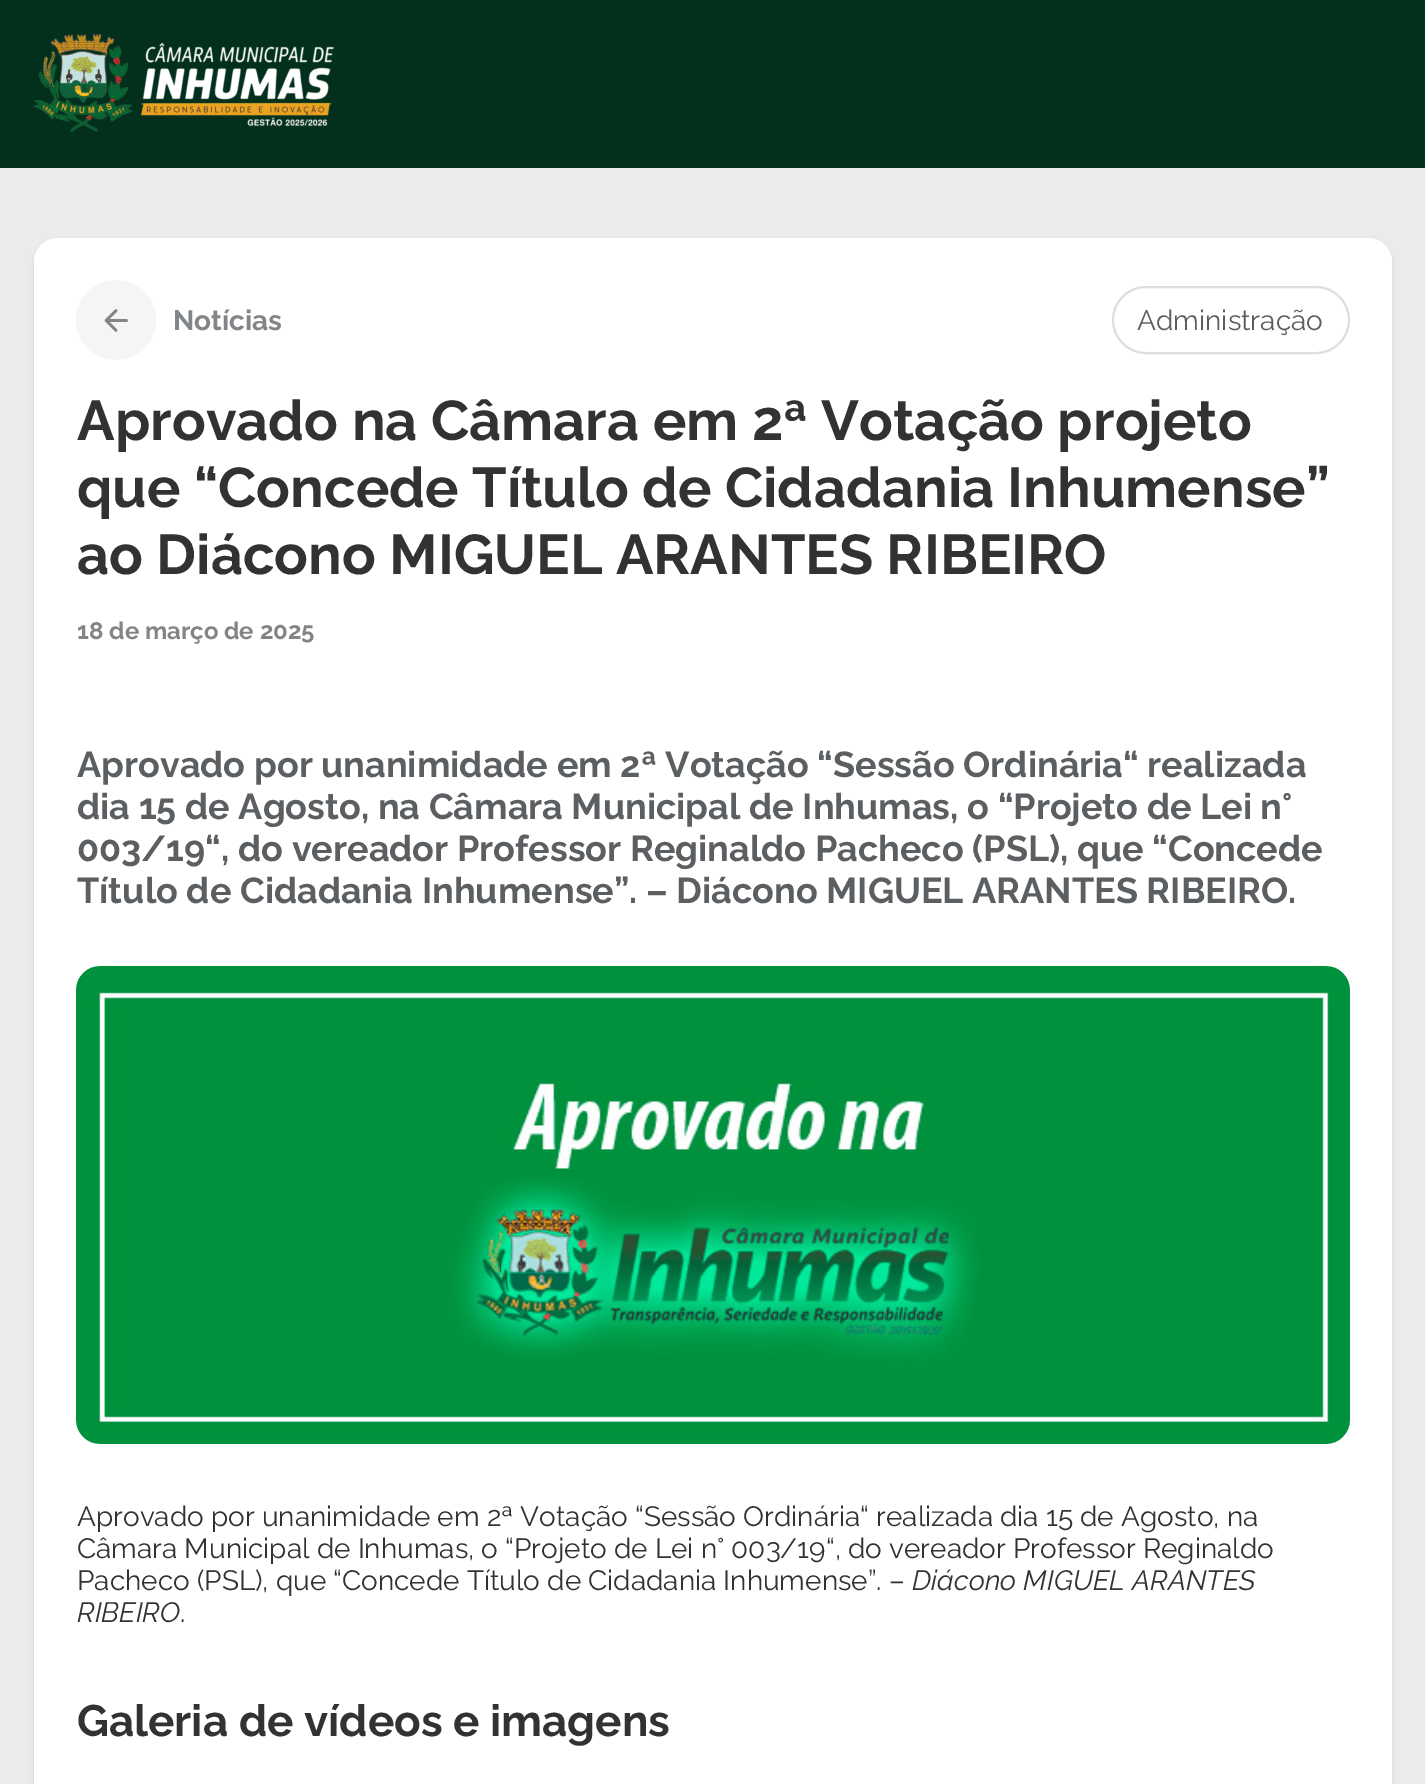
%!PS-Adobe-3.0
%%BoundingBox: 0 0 1425 1784
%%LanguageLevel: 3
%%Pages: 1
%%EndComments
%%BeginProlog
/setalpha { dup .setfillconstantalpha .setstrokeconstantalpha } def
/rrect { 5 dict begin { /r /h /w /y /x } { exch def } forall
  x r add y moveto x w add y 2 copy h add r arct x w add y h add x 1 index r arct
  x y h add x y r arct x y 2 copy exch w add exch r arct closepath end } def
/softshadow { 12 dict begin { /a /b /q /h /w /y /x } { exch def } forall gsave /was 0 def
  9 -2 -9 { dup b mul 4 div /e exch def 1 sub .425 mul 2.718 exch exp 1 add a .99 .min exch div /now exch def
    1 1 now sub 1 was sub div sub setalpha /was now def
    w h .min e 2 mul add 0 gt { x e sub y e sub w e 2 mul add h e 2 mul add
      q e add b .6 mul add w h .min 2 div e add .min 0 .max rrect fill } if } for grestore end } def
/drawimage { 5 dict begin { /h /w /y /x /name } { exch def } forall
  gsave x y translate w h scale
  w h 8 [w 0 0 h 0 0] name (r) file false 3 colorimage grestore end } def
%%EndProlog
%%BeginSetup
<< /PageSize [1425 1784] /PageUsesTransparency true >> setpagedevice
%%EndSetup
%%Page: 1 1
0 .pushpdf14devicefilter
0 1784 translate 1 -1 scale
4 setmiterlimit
0.918 0.922 0.929 setrgbcolor
0 0 1425 1784 rectfill
0.012 0.188 0.114 setrgbcolor
0 0 1425 168 rectfill
(images/1.raw) 34 34 300 98 drawimage
0 setgray
34 240 1358 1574 24 2 0.1 softshadow
1 setgray
34 238 1358 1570 24 rrect fill
0.961 setgray
newpath 116 320 40 0 360 arc closepath fill
(images/2.raw) 104 309 24 23 drawimage
0.863 0.871 0.878 setrgbcolor
2 setlinewidth
1113 287 236 66 33 rrect stroke
(images/3.raw) 76 966 1274 478 drawimage
/Raleway-Bold [28 0 0 -28 0 0] selectfont
0.51 0.522 0.533 setrgbcolor
173 330 moveto (Notícias) show
/Raleway-Regular [28 0 0 -28 0 0] selectfont
0.361 0.373 0.384 setrgbcolor
1137 330 moveto (Administração) show
/Raleway-Bold [55.9 0 0 -55.9 0 0] selectfont
0.188 0.196 0.204 setrgbcolor
77 440 moveto (Aprovado na Câmara em 2ª Votação projeto) show
77 507 moveto (que “Concede Título de Cidadania Inhumense”) show
77 574 moveto (ao Diácono MIGUEL ARANTES RIBEIRO) show
/Raleway-Bold [24 0 0 -24 0 0] selectfont
0.51 0.522 0.533 setrgbcolor
77 639 moveto (18 de março de 2025) show
/Raleway-Bold [36 0 0 -36 0 0] selectfont
0.361 0.373 0.384 setrgbcolor
77 777 moveto (Aprovado por unanimidade em 2ª Votação “Sessão Ordinária“ realizada) show
77 819 moveto (dia 15 de Agosto, na Câmara Municipal de Inhumas, o “Projeto de Lei n°) show
77 861 moveto (003/19“, do vereador Professor Reginaldo Pacheco \(PSL\), que “Concede) show
77 903 moveto (Título de Cidadania Inhumense”. – Diácono MIGUEL ARANTES RIBEIRO.) show
/Raleway-Regular [27.95 0 0 -27.95 0 0] selectfont
0.188 0.196 0.204 setrgbcolor
77 1526 moveto (Aprovado por unanimidade em 2ª Votação “Sessão Ordinária“ realizada dia 15 de Agosto, na) show
77 1558 moveto (Câmara Municipal de Inhumas, o “Projeto de Lei n° 003/19“, do vereador Professor Reginaldo) show
77 1590 moveto (Pacheco \(PSL\), que “Concede Título de Cidadania Inhumense”. –) show
/Raleway-Italic [27.95 0 0 -27.95 0 0] selectfont
912 1590 moveto (Diácono MIGUEL ARANTES) show
77 1622 moveto (RIBEIRO) show
/Raleway-Regular [27.95 0 0 -27.95 0 0] selectfont
180 1622 moveto (.) show
/Raleway-Bold [44 0 0 -44 0 0] selectfont
77 1736 moveto (Galeria de vídeos e imagens) show
.poppdf14devicefilter showpage
%%EOF
